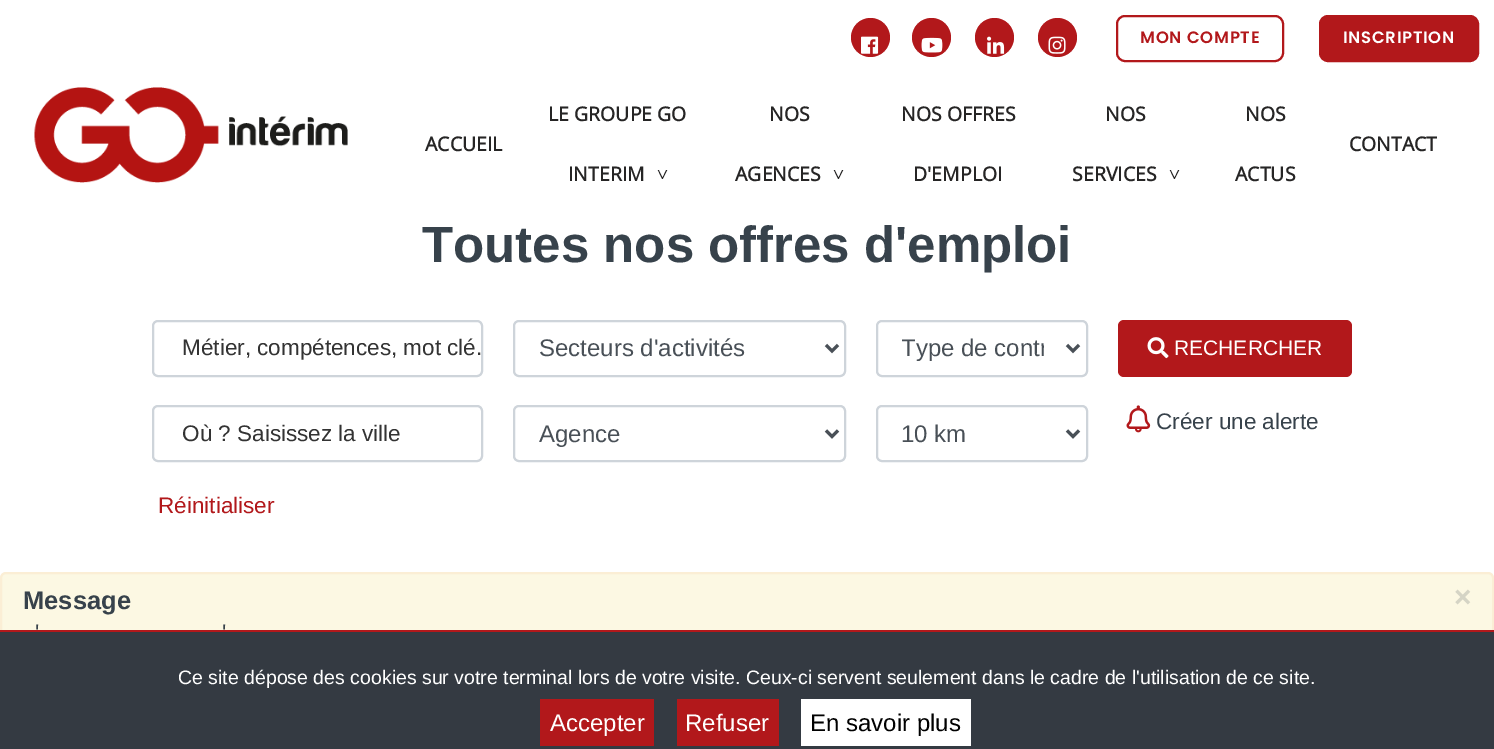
%!PS-Adobe-3.0
%%BoundingBox: 0 0 1494 749
%%LanguageLevel: 3
%%Pages: 1
%%EndComments
%%BeginProlog
/rrect { 5 dict begin { /r /h /w /y /x } { exch def } forall
  x r add y moveto x w add y 2 copy h add r arct x w add y h add x 1 index r arct
  x y h add x y r arct x y 2 copy exch w add exch r arct closepath end } def
/drawimage { 5 dict begin { /h /w /y /x /name } { exch def } forall
  gsave x y translate w h scale
  w h 8 [w 0 0 h 0 0] name (r) file false 3 colorimage grestore end } def
%%EndProlog
%%BeginSetup
<< /PageSize [1494 749] >> setpagedevice
%%EndSetup
%%Page: 1 1
0 749 translate 1 -1 scale
4 setmiterlimit
1 setgray
0 0 1494 749 rectfill
0.698 0.094 0.106 setrgbcolor
newpath 870.5 37.5 19.5 0 360 arc closepath fill
(images/1.raw) 861 36 18 18 drawimage
newpath 931.5 37.5 19.5 0 360 arc closepath fill
(images/2.raw) 921 37 22 16 drawimage
newpath 994.5 37.5 19.5 0 360 arc closepath fill
(images/3.raw) 987 36 18 18 drawimage
newpath 1057.5 37.5 19.5 0 360 arc closepath fill
(images/4.raw) 1048 36 18 18 drawimage
2 setlinewidth
1117 16 166 45 8 rrect stroke
1320 16 158 45 8 rrect gsave fill grestore
stroke
(images/5.raw) 34 87 314 96 drawimage
0.808 0.831 0.855 setrgbcolor
153 321 329 55 5 rrect stroke
153 406 329 55 5 rrect stroke
514 321 331 55 5 rrect stroke
0.286 0.314 0.341 setrgbcolor
3 setlinewidth
newpath 826 345 moveto 832 351 lineto 838 345 lineto stroke
0.808 0.831 0.855 setrgbcolor
2 setlinewidth
514 406 331 55 5 rrect stroke
0.286 0.314 0.341 setrgbcolor
3 setlinewidth
newpath 826 430.5 moveto 832 436.5 lineto 838 430.5 lineto stroke
0.808 0.831 0.855 setrgbcolor
2 setlinewidth
877 321 210 55 5 rrect stroke
0.286 0.314 0.341 setrgbcolor
3 setlinewidth
newpath 1067 345 moveto 1073 351 lineto 1079 345 lineto stroke
0.808 0.831 0.855 setrgbcolor
2 setlinewidth
877 406 210 55 5 rrect stroke
0.286 0.314 0.341 setrgbcolor
3 setlinewidth
newpath 1067 430.5 moveto 1073 436.5 lineto 1079 430.5 lineto stroke
0.698 0.094 0.106 setrgbcolor
1118 320 234 57 6 rrect fill
(images/6.raw) 1147 337 22 22 drawimage
(images/7.raw) 1126 405 25 28 drawimage
0.988 0.973 0.89 setrgbcolor
1 573 1492 86 5 rrect gsave fill grestore
0.984 0.933 0.835 setrgbcolor
2 setlinewidth
stroke
0.204 0.227 0.259 setrgbcolor
0 632 1494 117 rectfill
0.698 0.094 0.106 setrgbcolor
0 630 1494 2 rectfill
540 699 114 47 rectfill
677 699 102 47 rectfill
1 setgray
801 699 170 47 rectfill
/Poppins-SemiBold [16.5 0 0 -16.5 0 0] selectfont
0.698 0.094 0.106 setrgbcolor
1140 43 moveto 0.75 0 (MON COMPTE) ashow
1 setgray
1343 43 moveto 0.75 0 (INSCRIPTION) ashow
/OpenSans-Bold [19.5 0 0 -19.5 0 0] selectfont
0.149 0.145 0.145 setrgbcolor
425 151 moveto (ACCUEIL) show
548 121 moveto (LE GROUPE GO) show
568 181 moveto (INTERIM) show
/LiberationSerif-Bold [19.5 0 0 -19.5 0 0] selectfont
gsave 656 169 translate 90 rotate 0 0 moveto (>) show grestore
/OpenSans-Bold [19.5 0 0 -19.5 0 0] selectfont
769 121 moveto (NOS) show
735 181 moveto (AGENCES) show
/LiberationSerif-Bold [19.5 0 0 -19.5 0 0] selectfont
gsave 832 169 translate 90 rotate 0 0 moveto (>) show grestore
/OpenSans-Bold [19.5 0 0 -19.5 0 0] selectfont
901 121 moveto (NOS OFFRES) show
913 181 moveto (D'EMPLOI) show
1105 121 moveto (NOS) show
1072 181 moveto (SERVICES) show
/LiberationSerif-Bold [19.5 0 0 -19.5 0 0] selectfont
gsave 1168 169 translate 90 rotate 0 0 moveto (>) show grestore
/OpenSans-Bold [19.5 0 0 -19.5 0 0] selectfont
1245 121 moveto (NOS) show
1235 181 moveto (ACTUS) show
1349 151 moveto (CONTACT) show
/LiberationSans-Bold [51 0 0 -51 0 0] selectfont
0.216 0.259 0.294 setrgbcolor
422 262 moveto (Toutes nos offres d'emploi) show
/LiberationSans-Regular [22.5 0 0 -22.5 0 0] selectfont
0.2 setgray
182 355 moveto (Métier, compétences, mot clé.) show
182 441 moveto (Où ? Saisissez la ville) show
0.698 0.094 0.106 setrgbcolor
158 513 moveto (Réinitialiser) show
/LiberationSans-Regular [24 0 0 -24 0 0] selectfont
0.286 0.314 0.341 setrgbcolor
539 356 moveto (Secteurs d'activités) show
539 442 moveto (Agence) show
gsave
902 333 142 29 rectclip
901 356 moveto (Type de contr) show
grestore
901 442 moveto (10 km) show
/LiberationSans-Regular [21 0 0 -21 0 0] selectfont
1 setgray
1174 355 moveto (RECHERCHER) show
/LiberationSans-Regular [22.5 0 0 -22.5 0 0] selectfont
0.216 0.259 0.294 setrgbcolor
1156 429 moveto (Créer une alerte) show
/LiberationSans-Bold [25.5 0 0 -25.5 0 0] selectfont
23 609 moveto (Message) show
/LiberationSans-Bold [30 0 0 -30 0 0] selectfont
0.835 0.831 0.773 setrgbcolor
1454 607 moveto (×) show
/LiberationSans-Regular [22.5 0 0 -22.5 0 0] selectfont
0.216 0.259 0.294 setrgbcolor
35 640 moveto (') show
222 640 moveto (') show
/LiberationSans-Regular [19.5 0 0 -19.5 0 0] selectfont
1 setgray
178 684 moveto (Ce site dépose des cookies sur votre terminal lors de votre visite. Ceux-ci servent seulement dans le cadre de l'utilisation de ce site.) show
/LiberationSans-Regular [24 0 0 -24 0 0] selectfont
550 731 moveto (Accepter) show
685 731 moveto (Refuser) show
0 setgray
810 731 moveto (En savoir plus) show
showpage
%%EOF
